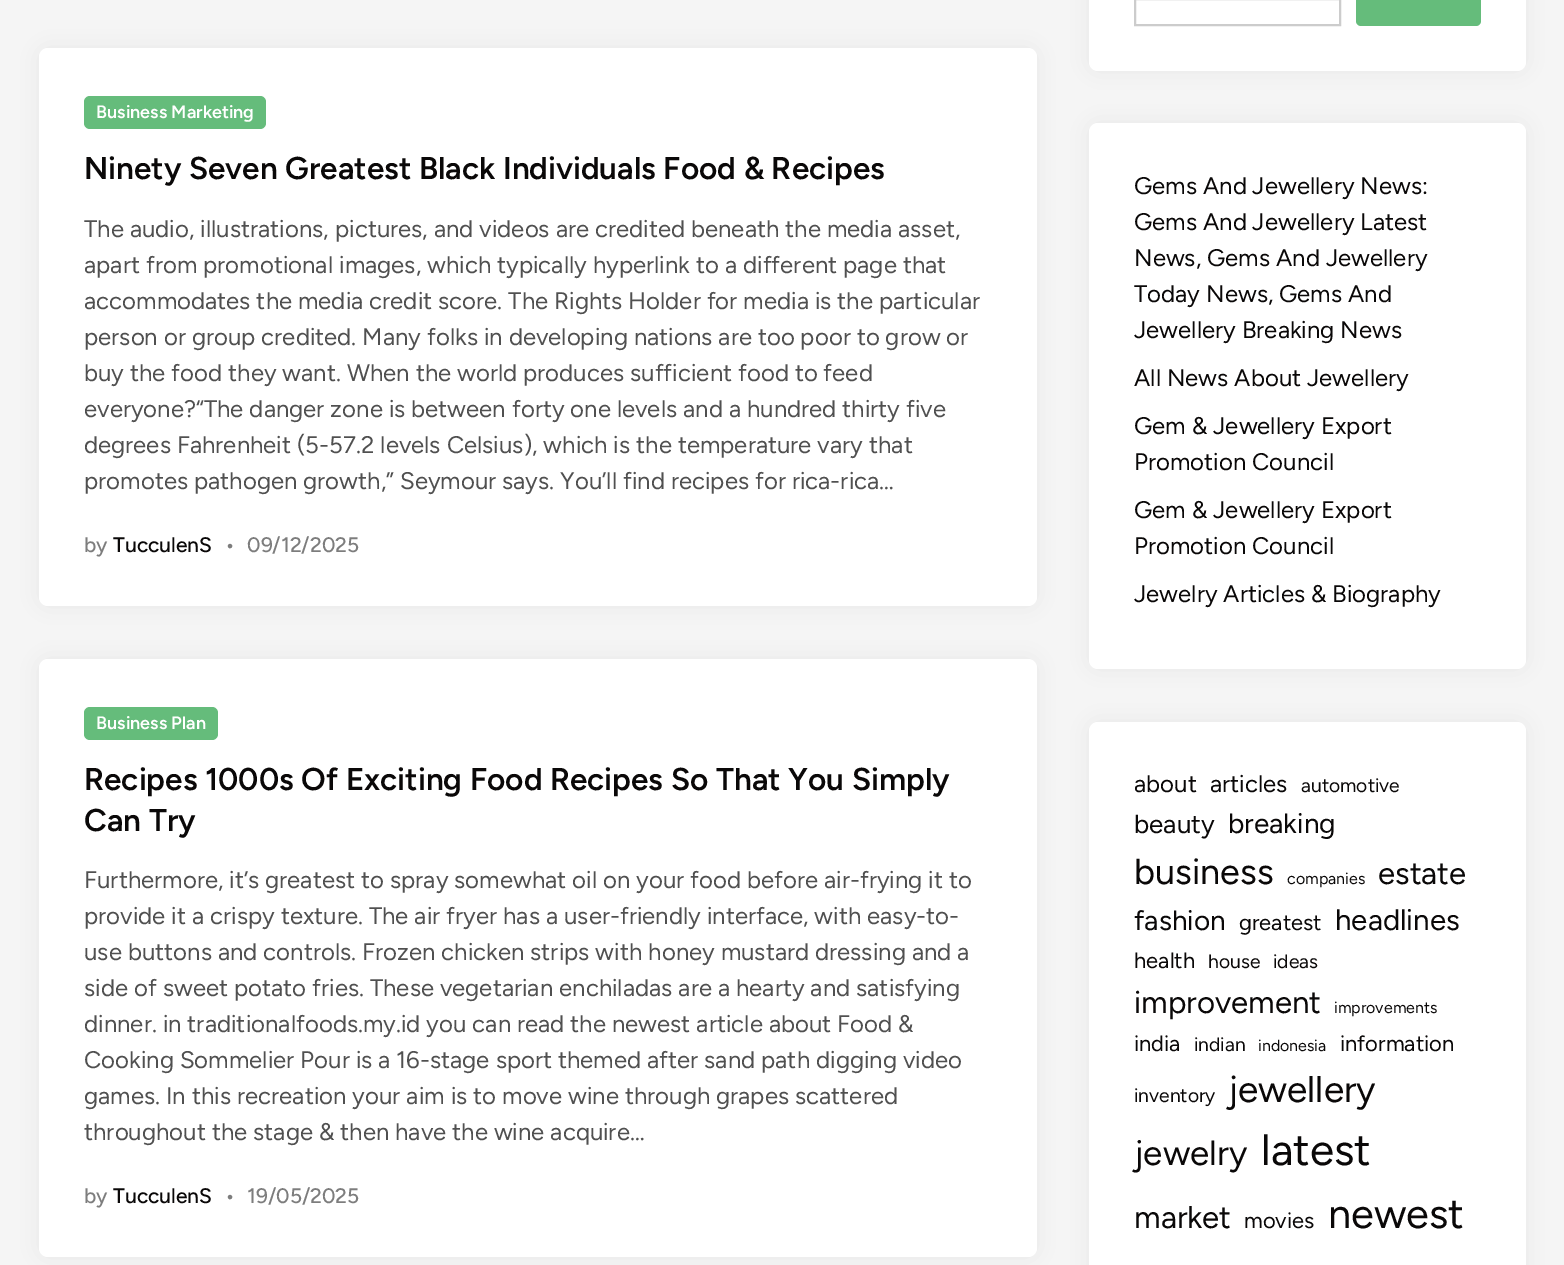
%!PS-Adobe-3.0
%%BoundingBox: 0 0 1564 1265
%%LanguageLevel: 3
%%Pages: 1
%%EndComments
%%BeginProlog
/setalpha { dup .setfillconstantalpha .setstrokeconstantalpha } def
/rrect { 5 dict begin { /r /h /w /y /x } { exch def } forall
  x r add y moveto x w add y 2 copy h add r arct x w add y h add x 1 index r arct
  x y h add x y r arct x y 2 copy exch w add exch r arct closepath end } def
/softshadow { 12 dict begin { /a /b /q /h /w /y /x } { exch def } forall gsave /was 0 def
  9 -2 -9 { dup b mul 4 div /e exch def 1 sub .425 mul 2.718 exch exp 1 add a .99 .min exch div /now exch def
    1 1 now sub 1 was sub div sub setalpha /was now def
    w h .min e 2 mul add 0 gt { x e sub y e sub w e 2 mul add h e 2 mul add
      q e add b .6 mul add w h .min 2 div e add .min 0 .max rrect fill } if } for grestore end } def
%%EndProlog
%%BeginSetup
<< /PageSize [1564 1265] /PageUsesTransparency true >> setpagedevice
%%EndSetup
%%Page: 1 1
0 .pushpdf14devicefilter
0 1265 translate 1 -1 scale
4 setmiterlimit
0.961 setgray
0 0 1564 1265 rectfill
0 setgray
39 48 998 558 9 11 0.06 softshadow
1 setgray
39 48 998 558 9 rrect fill
0.396 0.737 0.482 setrgbcolor
84 96 182 33 6 rrect fill
0 setgray
39 659 998 598 9 11 0.06 softshadow
1 setgray
39 659 998 598 9 rrect fill
0.396 0.737 0.482 setrgbcolor
84 707 134 33 6 rrect fill
0 setgray
1089 -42 437 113 9 11 0.06 softshadow
1 setgray
1089 -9 437 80 9 rrect fill
0.8 setgray
2 setlinewidth
1135 -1 205 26 rectstroke
0.396 0.737 0.482 setrgbcolor
1356 -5 125 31 5 rrect fill
0 setgray
1089 123 437 546 9 11 0.06 softshadow
1 setgray
1089 123 437 546 9 rrect fill
0 setgray
1089 722 437 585 9 11 0.06 softshadow
1 setgray
1089 722 437 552 9 rrect fill
/Figtree-SemiBold [18 0 0 -18 0 0] selectfont
96 118 moveto (Business Marketing) show
/Figtree-SemiBold [31.5 0 0 -31.5 0 0] selectfont
0.039 0.031 0.031 setrgbcolor
84 179 moveto (Ninety Seven Greatest Black Individuals Food & Recipes) show
/Figtree-Regular [24 0 0 -24 0 0] selectfont
0.314 setgray
84 237 moveto (The audio, illustrations, pictures, and videos are credited beneath the media asset,) show
84 273 moveto (apart from promotional images, which typically hyperlink to a different page that) show
84 309 moveto (accommodates the media credit score. The Rights Holder for media is the particular) show
84 345 moveto (person or group credited. Many folks in developing nations are too poor to grow or) show
84 381 moveto (buy the food they want. When the world produces sufficient food to feed) show
84 417 moveto (everyone?“The danger zone is between forty one levels and a hundred thirty five) show
84 453 moveto (degrees Fahrenheit \(5-57.2 levels Celsius\), which is the temperature vary that) show
84 489 moveto (promotes pathogen growth,” Seymour says. You’ll find recipes for rica-rica…) show
/Figtree-Medium [21 0 0 -21 0 0] selectfont
0.49 setgray
84 552 moveto (by) show
0.039 0.031 0.031 setrgbcolor
113 552 moveto (TucculenS) show
0.49 setgray
225 552 moveto (•) show
247 552 moveto (09/12/2025) show
/Figtree-SemiBold [18 0 0 -18 0 0] selectfont
1 setgray
96 729 moveto (Business Plan) show
/Figtree-SemiBold [31.5 0 0 -31.5 0 0] selectfont
0.039 0.031 0.031 setrgbcolor
84 790 moveto (Recipes 1000s Of Exciting Food Recipes So That You Simply) show
84 831 moveto (Can Try) show
/Figtree-Regular [24 0 0 -24 0 0] selectfont
0.314 setgray
84 888 moveto (Furthermore, it’s greatest to spray somewhat oil on your food before air-frying it to) show
84 924 moveto (provide it a crispy texture. The air fryer has a user-friendly interface, with easy-to-) show
84 960 moveto (use buttons and controls. Frozen chicken strips with honey mustard dressing and a) show
84 996 moveto (side of sweet potato fries. These vegetarian enchiladas are a hearty and satisfying) show
84 1032 moveto (dinner. in traditionalfoods.my.id you can read the newest article about Food &) show
84 1068 moveto (Cooking Sommelier Pour is a 16-stage sport themed after sand path digging video) show
84 1104 moveto (games. In this recreation your aim is to move wine through grapes scattered) show
84 1140 moveto (throughout the stage & then have the wine acquire…) show
/Figtree-Medium [21 0 0 -21 0 0] selectfont
0.49 setgray
84 1203 moveto (by) show
0.039 0.031 0.031 setrgbcolor
113 1203 moveto (TucculenS) show
0.49 setgray
225 1203 moveto (•) show
247 1203 moveto (19/05/2025) show
/Figtree-Regular [24 0 0 -24 0 0] selectfont
0.039 0.031 0.031 setrgbcolor
1134 194 moveto (Gems And Jewellery News:) show
1134 230 moveto (Gems And Jewellery Latest) show
1134 266 moveto (News, Gems And Jewellery) show
1134 302 moveto (Today News, Gems And) show
1134 338 moveto (Jewellery Breaking News) show
1134 386 moveto (All News About Jewellery) show
1134 434 moveto (Gem & Jewellery Export) show
1134 470 moveto (Promotion Council) show
1134 518 moveto (Gem & Jewellery Export) show
1134 554 moveto (Promotion Council) show
1134 602 moveto (Jewelry Articles & Biography) show
1134 792 moveto (about) show
1210 792 moveto (articles) show
/Figtree-Regular [19.25 0 0 -19.25 0 0] selectfont
1301 792 moveto (automotive) show
/Figtree-Regular [26 0 0 -26 0 0] selectfont
1134 833 moveto (beauty) show
/Figtree-Regular [28 0 0 -28 0 0] selectfont
1228 833 moveto (breaking) show
/Figtree-Regular [36 0 0 -36 0 0] selectfont
1134 884 moveto (business) show
/Figtree-Regular [16 0 0 -16 0 0] selectfont
1287 884 moveto (companies) show
/Figtree-Regular [31.25 0 0 -31.25 0 0] selectfont
1378 884 moveto (estate) show
/Figtree-Regular [28 0 0 -28 0 0] selectfont
1134 930 moveto (fashion) show
/Figtree-Regular [22 0 0 -22 0 0] selectfont
1239 930 moveto (greatest) show
/Figtree-Regular [29.5 0 0 -29.5 0 0] selectfont
1335 930 moveto (headlines) show
/Figtree-Regular [22 0 0 -22 0 0] selectfont
1134 968 moveto (health) show
/Figtree-Regular [19.25 0 0 -19.25 0 0] selectfont
1208 968 moveto (house) show
1273 968 moveto (ideas) show
/Figtree-Regular [31.25 0 0 -31.25 0 0] selectfont
1134 1013 moveto (improvement) show
/Figtree-Regular [16 0 0 -16 0 0] selectfont
1334 1013 moveto (improvements) show
/Figtree-Regular [22 0 0 -22 0 0] selectfont
1134 1051 moveto (india) show
/Figtree-Regular [19.25 0 0 -19.25 0 0] selectfont
1194 1051 moveto (indian) show
/Figtree-Regular [16 0 0 -16 0 0] selectfont
1258 1051 moveto (indonesia) show
/Figtree-Regular [22 0 0 -22 0 0] selectfont
1340 1051 moveto (information) show
/Figtree-Regular [19.25 0 0 -19.25 0 0] selectfont
1134 1102 moveto (inventory) show
/Figtree-Regular [37 0 0 -37 0 0] selectfont
1228 1102 moveto (jewellery) show
/Figtree-Regular [35 0 0 -35 0 0] selectfont
1134 1165 moveto (jewelry) show
/Figtree-Regular [44 0 0 -44 0 0] selectfont
1261 1165 moveto (latest) show
/Figtree-Regular [31.25 0 0 -31.25 0 0] selectfont
1134 1228 moveto (market) show
/Figtree-Regular [22 0 0 -22 0 0] selectfont
1244 1228 moveto (movies) show
/Figtree-Regular [41.5 0 0 -41.5 0 0] selectfont
1328 1228 moveto (newest) show
.poppdf14devicefilter showpage
%%EOF
